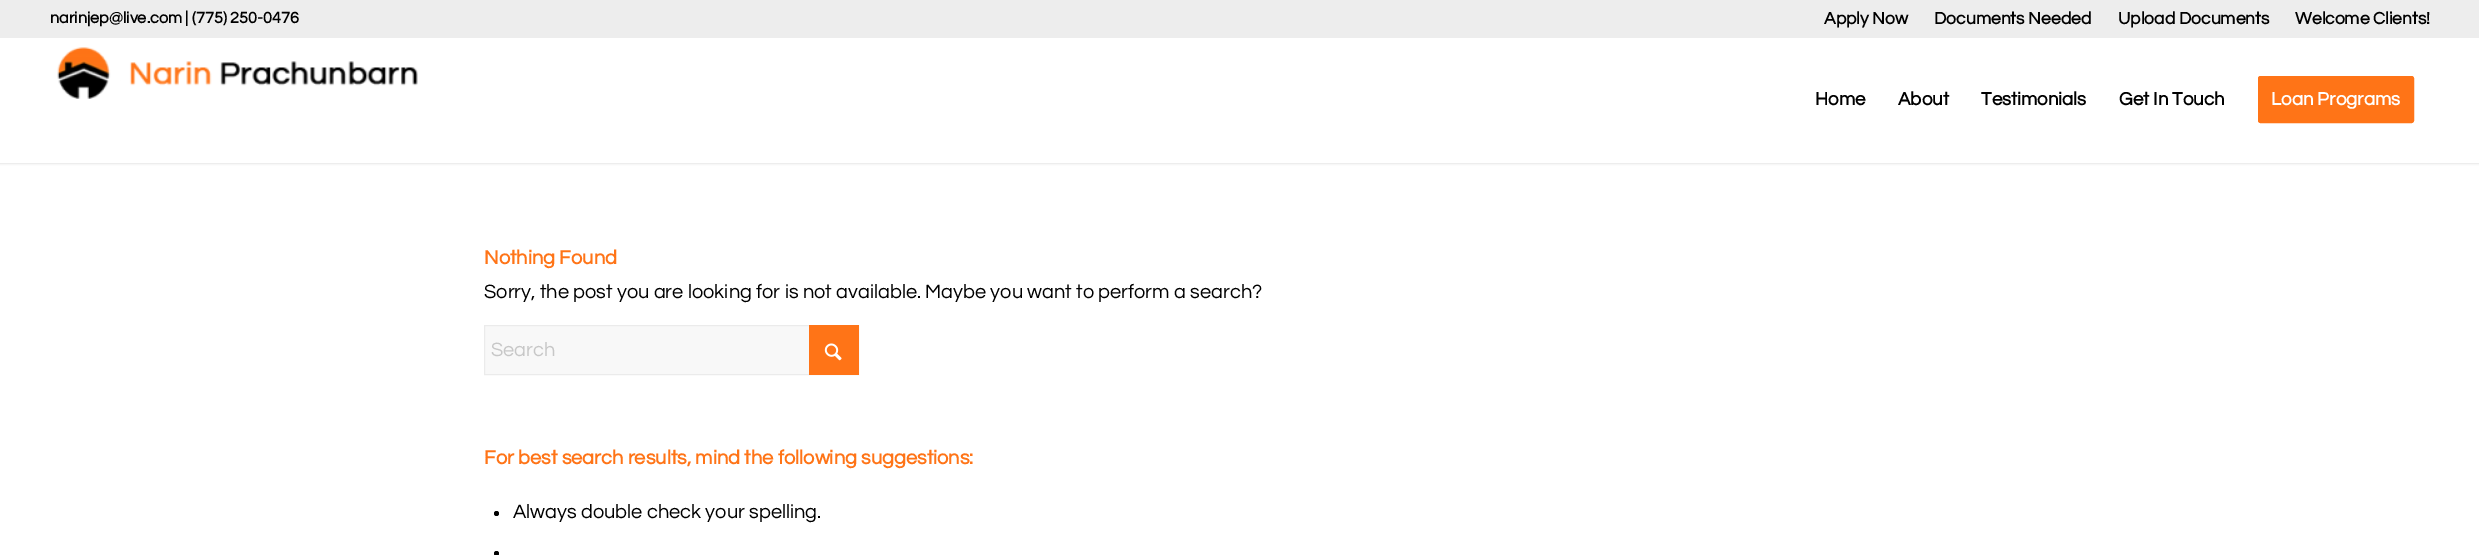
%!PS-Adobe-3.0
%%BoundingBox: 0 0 2479 555
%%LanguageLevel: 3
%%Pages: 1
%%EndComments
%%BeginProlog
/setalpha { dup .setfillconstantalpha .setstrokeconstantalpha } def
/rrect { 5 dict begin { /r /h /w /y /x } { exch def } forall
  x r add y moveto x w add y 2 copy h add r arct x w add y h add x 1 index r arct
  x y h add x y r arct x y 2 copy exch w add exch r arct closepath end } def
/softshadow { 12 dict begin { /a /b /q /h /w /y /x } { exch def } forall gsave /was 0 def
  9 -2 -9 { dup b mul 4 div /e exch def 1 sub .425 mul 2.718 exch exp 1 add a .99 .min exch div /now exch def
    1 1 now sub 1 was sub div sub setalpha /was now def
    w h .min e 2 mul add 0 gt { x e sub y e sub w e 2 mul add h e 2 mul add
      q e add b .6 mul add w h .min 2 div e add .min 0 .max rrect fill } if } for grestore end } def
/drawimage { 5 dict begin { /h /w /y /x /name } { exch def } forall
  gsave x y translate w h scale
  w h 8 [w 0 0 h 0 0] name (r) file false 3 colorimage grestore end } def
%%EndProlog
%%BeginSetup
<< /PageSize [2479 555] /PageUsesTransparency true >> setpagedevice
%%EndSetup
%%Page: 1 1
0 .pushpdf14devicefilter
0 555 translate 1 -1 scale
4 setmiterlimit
1 setgray
0 0 2479 555 rectfill
0 setgray
-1 -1 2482 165 0 1 0.1 softshadow
0.929 setgray
0 0 2479 38 rectfill
1 setgray
0 38 2479 125 rectfill
(images/1.raw) 57 47 361 52 drawimage
1 0.455 0.09 setrgbcolor
2259.5 77.5 153 44 1 rrect gsave fill grestore
3 setlinewidth
stroke
0.973 setgray
485 326 324 48 rectfill
0.922 setgray
1 setlinewidth
484.5 325.5 374 49 rectstroke
1 0.455 0.09 setrgbcolor
809 325 50 50 rectfill
(images/2.raw) 824 343 18 18 drawimage
0 setgray
newpath 496.5 513.5 2.5 0 360 arc closepath fill
newpath 496.5 553.5 2.5 0 360 arc closepath fill
/Questrial-Bold [16.25 0 0 -16.25 0 0] selectfont
50 23 moveto (narinjep@live.com | \(775\) 250-0476) show
/Questrial-Bold [17.5 0 0 -17.5 0 0] selectfont
1824 24 moveto (Apply Now) show
1934 24 moveto (Documents Needed) show
2118 24 moveto (Upload Documents) show
2295 24 moveto (Welcome Clients!) show
/Questrial-Bold [18.75 0 0 -18.75 0 0] selectfont
1815 105 moveto (Home) show
1898 105 moveto (About) show
1981 105 moveto (Testimonials) show
2119 105 moveto (Get In Touch) show
1 setgray
2271 105 moveto (Loan Programs) show
/Questrial-Bold [20 0 0 -20 0 0] selectfont
1 0.455 0.09 setrgbcolor
484 264 moveto (Nothing Found) show
/Questrial-Regular [20 0 0 -20 0 0] selectfont
0 setgray
484 298 moveto (Sorry, the post you are looking for is not available. Maybe you want to perform a search?) show
0.78 setgray
491 356 moveto (Search) show
/Questrial-Bold [20 0 0 -20 0 0] selectfont
1 0.455 0.09 setrgbcolor
484 464 moveto (For best search results, mind the following suggestions:) show
/Questrial-Regular [20 0 0 -20 0 0] selectfont
0 setgray
513 518 moveto (Always double check your spelling.) show
.poppdf14devicefilter showpage
%%EOF
